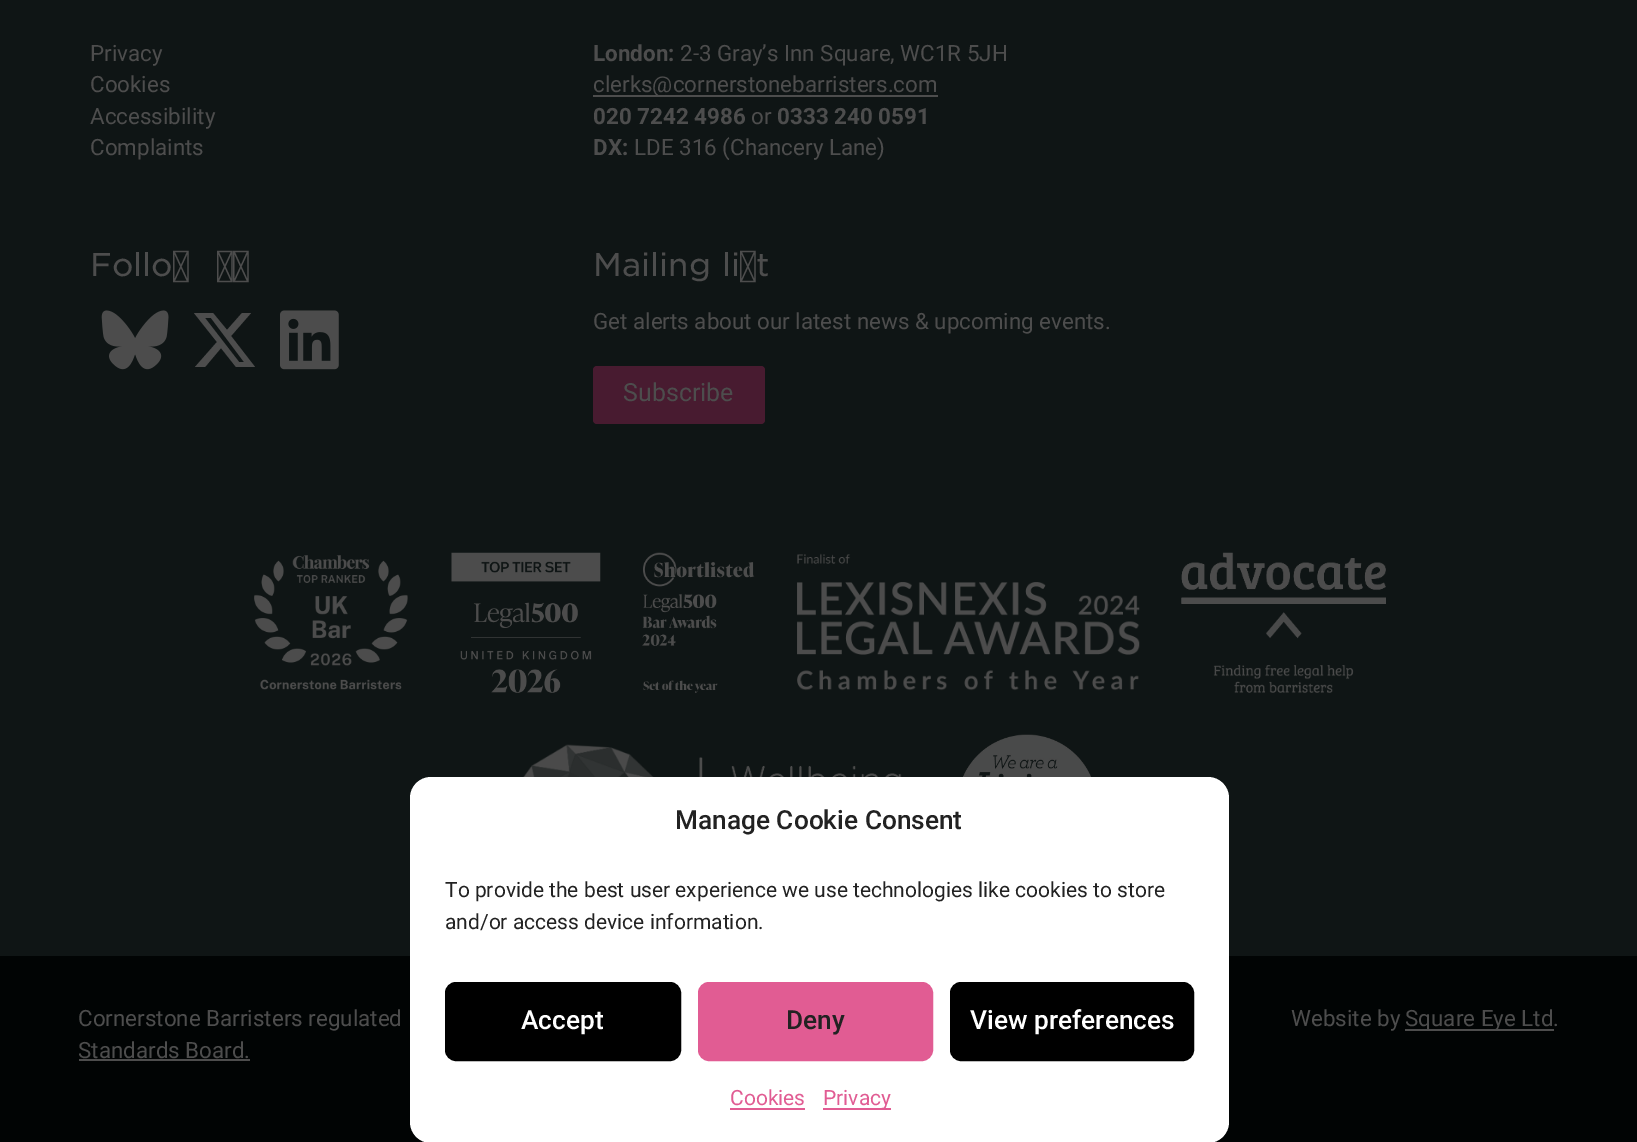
%!PS-Adobe-3.0
%%BoundingBox: 0 0 1637 1142
%%LanguageLevel: 3
%%Pages: 1
%%EndComments
%%BeginProlog
/rrect { 5 dict begin { /r /h /w /y /x } { exch def } forall
  x r add y moveto x w add y 2 copy h add r arct x w add y h add x 1 index r arct
  x y h add x y r arct x y 2 copy exch w add exch r arct closepath end } def
/drawimage { 5 dict begin { /h /w /y /x /name } { exch def } forall
  gsave x y translate w h scale
  w h 8 [w 0 0 h 0 0] name (r) file false 3 colorimage grestore end } def
%%EndProlog
%%BeginSetup
<< /PageSize [1637 1142] >> setpagedevice
%%EndSetup
%%Page: 1 1
0 1142 translate 1 -1 scale
4 setmiterlimit
0.059 0.082 0.082 setrgbcolor
0 0 1637 1142 rectfill
0.302 setgray
593 95 345 2 rectfill
(images/1.raw) 101 310 68 60 drawimage
newpath 242 313 moveto 251 313 lineto 231 336 lineto 255 367 lineto 236 367 lineto 221 348 lineto 205 367 lineto 195 367 lineto 217 342 lineto 194 313 lineto 213 313 lineto 227 330 lineto closepath 239 362 moveto 244 362 lineto 211 318 lineto 205 318 lineto closepath fill
(images/2.raw) 280 310 59 60 drawimage
0.282 0.106 0.188 setrgbcolor
593 366 172 58 4 rrect fill
(images/3.raw) 254 555 154 135 drawimage
(images/4.raw) 451 552 150 141 drawimage
(images/5.raw) 642 552 113 141 drawimage
(images/6.raw) 797 553 343 138 drawimage
(images/7.raw) 1181 552 205 141 drawimage
(images/8.raw) 523 744 379 33 drawimage
(images/9.raw) 962 734 129 43 drawimage
0.004 0.016 0.016 setrgbcolor
0 956 1637 186 rectfill
0.302 setgray
79 1059 171 2 rectfill
1405 1029 149 2 rectfill
1 setgray
410 777 819 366 21 rrect fill
0 setgray
446 983 234 77 10 rrect gsave fill grestore
2 setlinewidth
stroke
0.882 0.361 0.576 setrgbcolor
699 983 233 77 10 rrect gsave fill grestore
stroke
0 setgray
951 983 242 77 10 rrect gsave fill grestore
stroke
0.882 0.361 0.576 setrgbcolor
730 1108 75 2 rectfill
823 1108 68 2 rectfill
/Roboto-Regular [22.4 0 0 -22.4 0 0] selectfont
0.302 setgray
90 61 moveto (Privacy) show
90 92 moveto (Cookies) show
90 124 moveto (Accessibility) show
90 155 moveto (Complaints) show
/Roboto-Bold [22.4 0 0 -22.4 0 0] selectfont
593 61 moveto (London:) show
/Roboto-Regular [22.4 0 0 -22.4 0 0] selectfont
680 61 moveto (2-3 Gray’s Inn Square, WC1R 5JH) show
593 92 moveto (clerks@cornerstonebarristers.com) show
/Roboto-Bold [22.4 0 0 -22.4 0 0] selectfont
593 124 moveto (020 7242 4986) show
/Roboto-Regular [22.4 0 0 -22.4 0 0] selectfont
751 124 moveto (or) show
/Roboto-Bold [22.4 0 0 -22.4 0 0] selectfont
777 124 moveto (0333 240 0591) show
593 155 moveto (DX:) show
/Roboto-Regular [22.4 0 0 -22.4 0 0] selectfont
634 155 moveto (LDE 316 \(Chancery Lane\)) show
/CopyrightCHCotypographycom-Light [31.5 0 0 -31.5 0 0] selectfont
90 276 moveto 18 0 32 (Follow us) widthshow
593 276 moveto 1 0 32 (Mailing list) widthshow
/Roboto-Regular [22.4 0 0 -22.4 0 0] selectfont
593 329 moveto (Get alerts about our latest news & upcoming events.) show
/Roboto-Regular [25 0 0 -25 0 0] selectfont
623 401 moveto (Subscribe) show
/Roboto-Regular [22.4 0 0 -22.4 0 0] selectfont
78 1026 moveto (Cornerstone Barristers regulated) show
78 1058 moveto (Standards Board.) show
1291 1026 moveto (Website by) show
1405 1026 moveto (Square Eye Ltd.) show
/Roboto-Medium [26.25 0 0 -26.25 0 0] selectfont
0.133 setgray
675 829 moveto (Manage Cookie Consent) show
/Roboto-Regular [21 0 0 -21 0 0] selectfont
445 897 moveto (To provide the best user experience we use technologies like cookies to store) show
445 929 moveto (and/or access device information.) show
/Roboto-Medium [26.25 0 0 -26.25 0 0] selectfont
1 setgray
521 1029 moveto (Accept) show
0.133 setgray
786 1029 moveto (Deny) show
1 setgray
970 1029 moveto (View preferences) show
/Roboto-Regular [21 0 0 -21 0 0] selectfont
0.882 0.361 0.576 setrgbcolor
730 1105 moveto (Cookies) show
823 1105 moveto (Privacy) show
showpage
%%EOF
